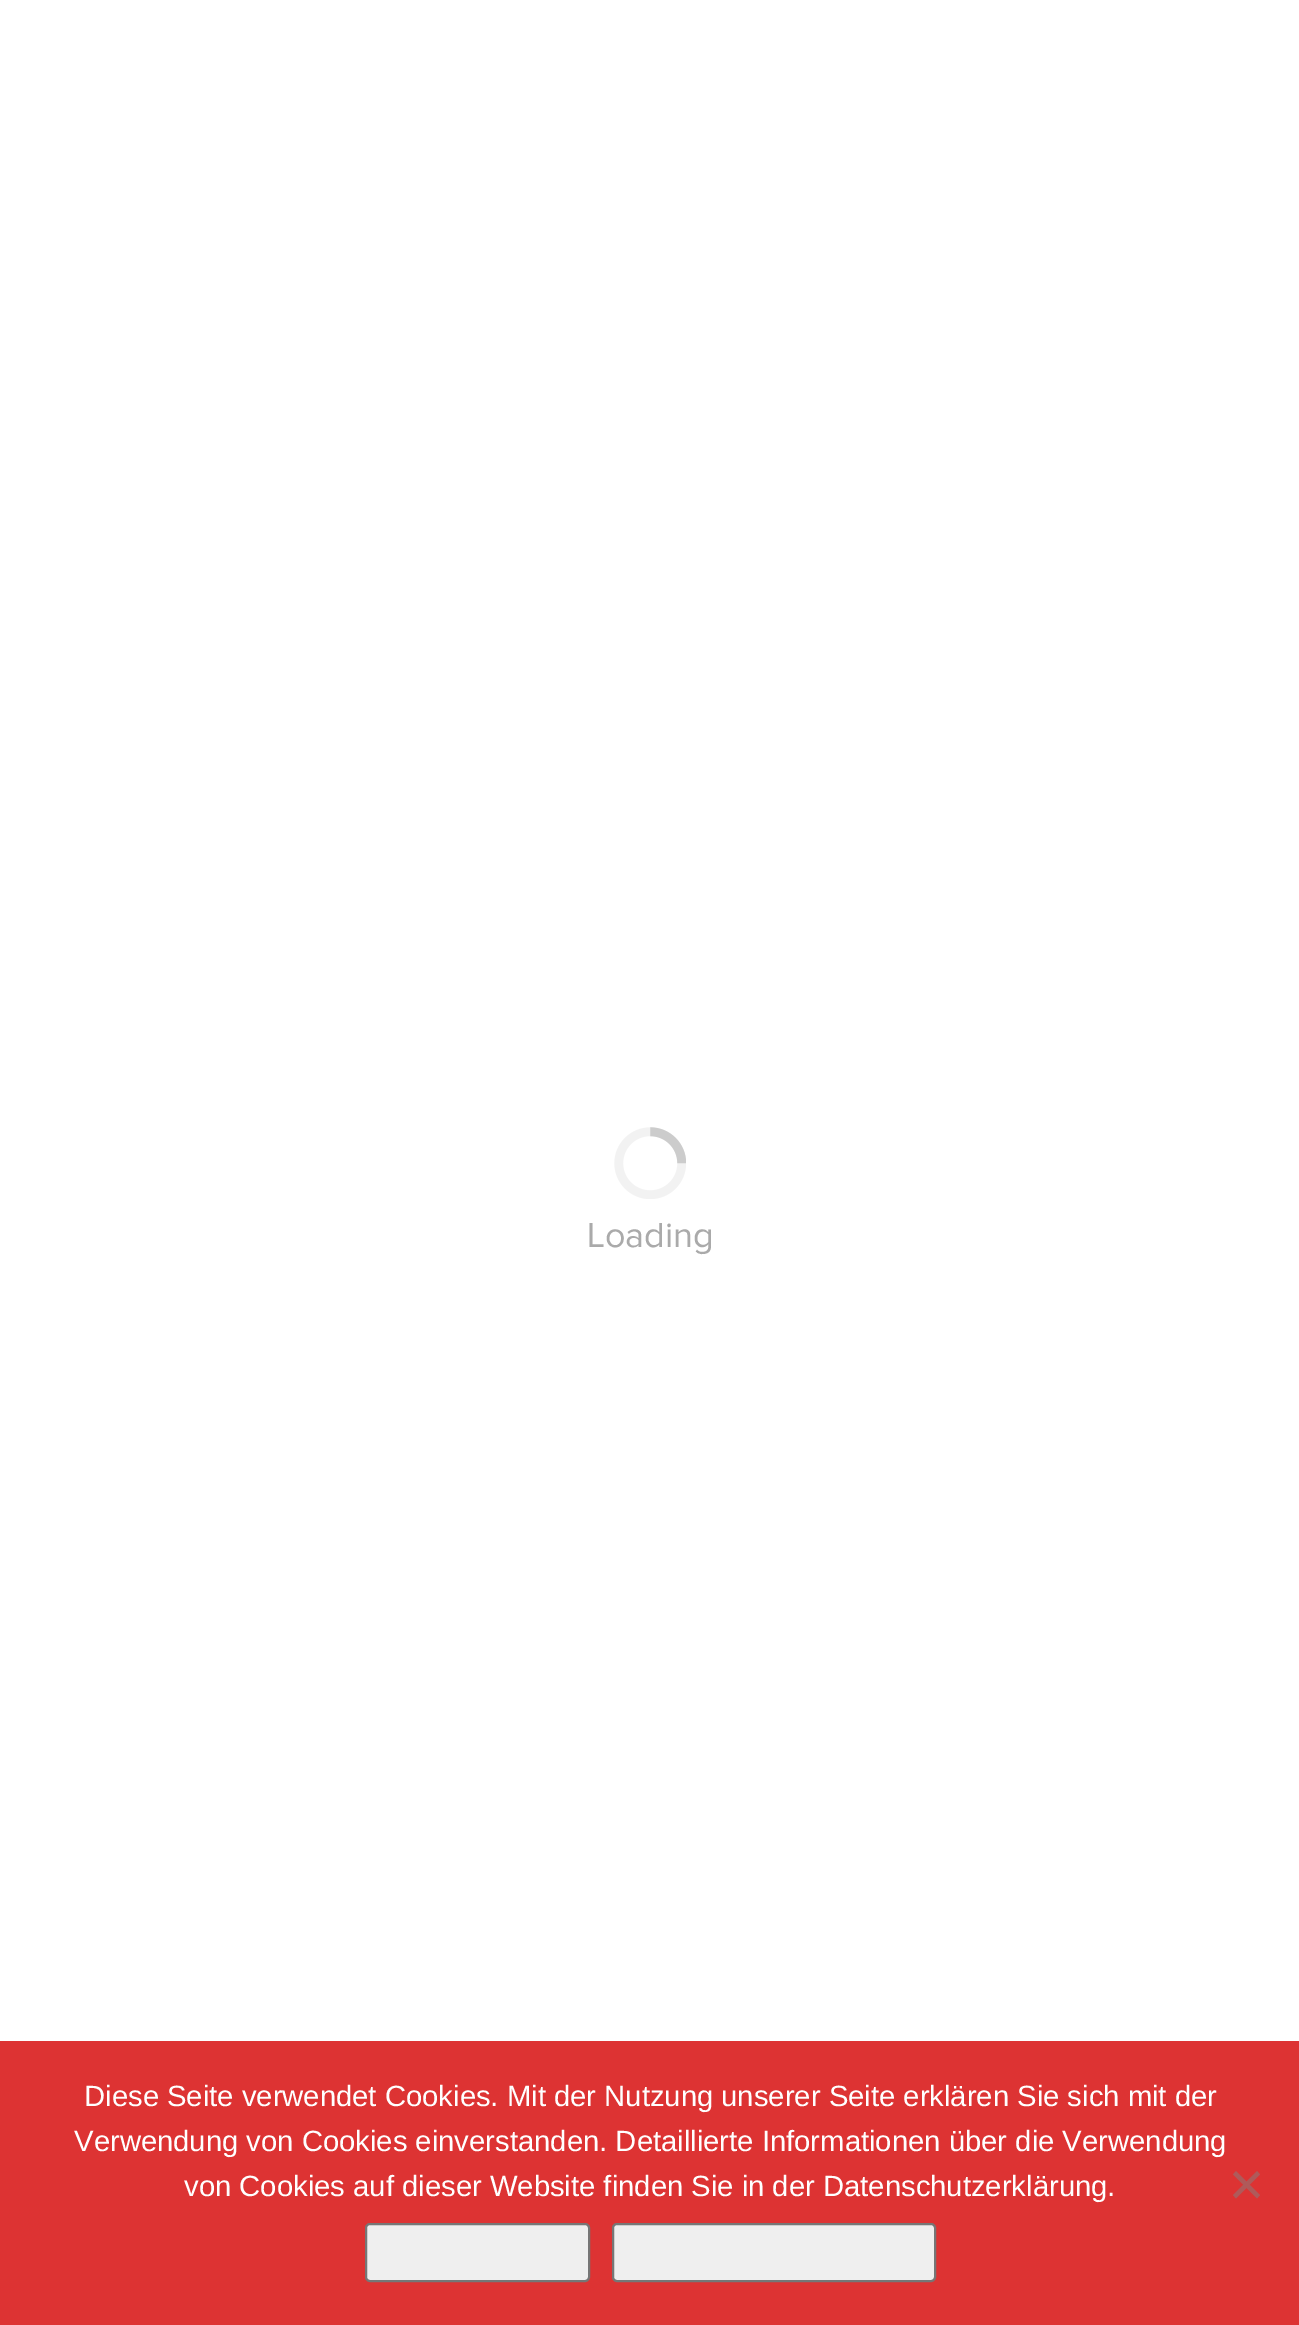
%!PS-Adobe-3.0
%%BoundingBox: 0 0 1299 2325
%%LanguageLevel: 3
%%Pages: 1
%%EndComments
%%BeginProlog
/rrect { 5 dict begin { /r /h /w /y /x } { exch def } forall
  x r add y moveto x w add y 2 copy h add r arct x w add y h add x 1 index r arct
  x y h add x y r arct x y 2 copy exch w add exch r arct closepath end } def
/drawimage { 5 dict begin { /h /w /y /x /name } { exch def } forall
  gsave x y translate w h scale
  w h 8 [w 0 0 h 0 0] name (r) file false 3 colorimage grestore end } def
%%EndProlog
%%BeginSetup
<< /PageSize [1299 2325] >> setpagedevice
%%EndSetup
%%Page: 1 1
0 2325 translate 1 -1 scale
4 setmiterlimit
1 setgray
0 0 1299 2325 rectfill
(images/1.raw) 614 1127 72 72 drawimage
0.867 0.2 0.2 setrgbcolor
0 2041 1299 284 rectfill
0.686 0.353 0.353 setrgbcolor
newpath 1257 2171 moveto 1260 2174.5 lineto 1236 2198.5 lineto 1233 2195 lineto closepath fill
newpath 1233 2174.5 moveto 1236 2171 lineto 1260 2195 lineto 1257 2198.5 lineto closepath fill
0.937 setgray
366 2224 223 57 4 rrect gsave fill grestore
0.463 setgray
2 setlinewidth
stroke
0.937 setgray
613 2224 322 57 4 rrect gsave fill grestore
0.463 setgray
stroke
/ProximaNova-Regular [36 0 0 -36 0 0] selectfont
0.667 setgray
587 1247 moveto (Loading) show
/LiberationSans-Regular [29.25 0 0 -29.25 0 0] selectfont
1 setgray
84 2106 moveto (Diese Seite verwendet Cookies. Mit der Nutzung unserer Seite erklären Sie sich mit der) show
74 2151 moveto (Verwendung von Cookies einverstanden. Detaillierte Informationen über die Verwendung) show
184 2196 moveto (von Cookies auf dieser Website finden Sie in der Datenschutzerklärung.) show
showpage
%%EOF
